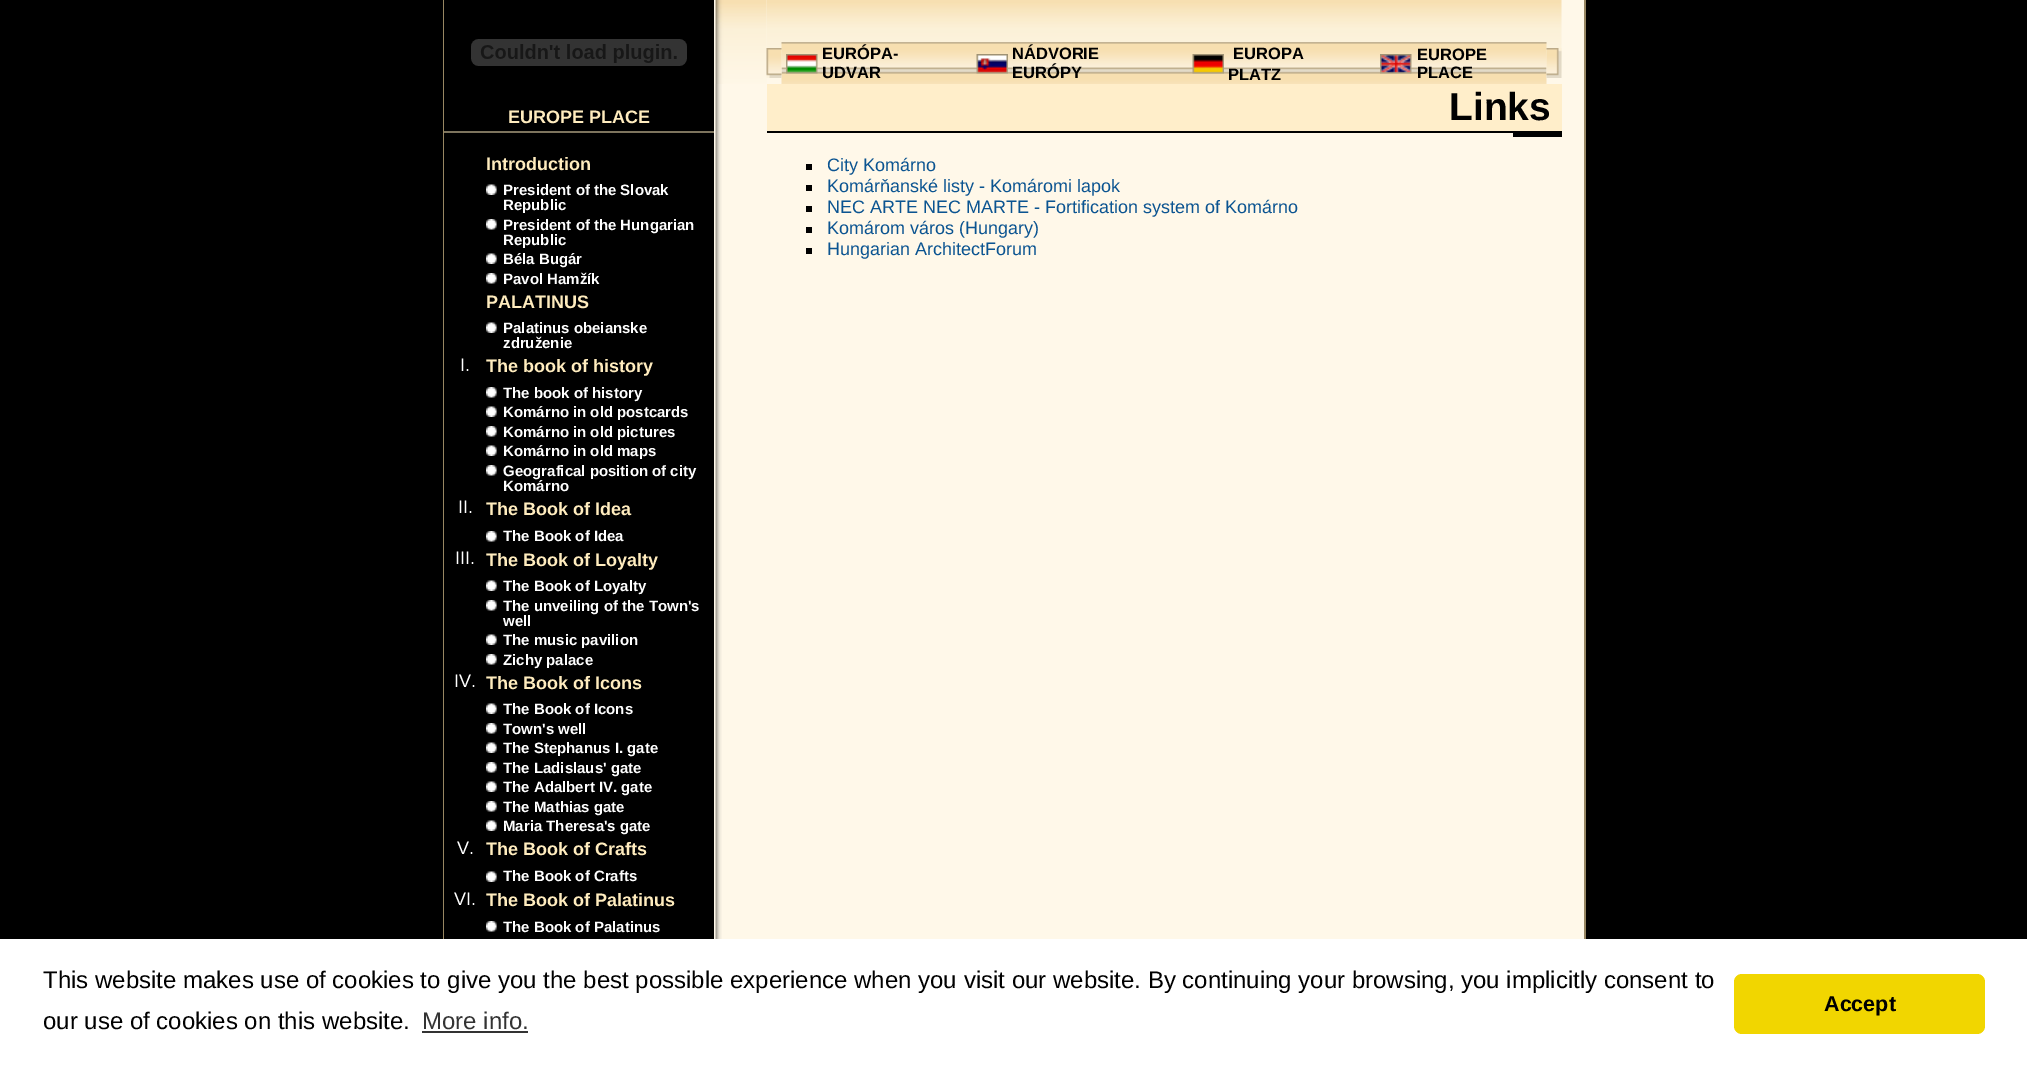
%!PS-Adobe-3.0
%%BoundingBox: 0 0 2027 1068
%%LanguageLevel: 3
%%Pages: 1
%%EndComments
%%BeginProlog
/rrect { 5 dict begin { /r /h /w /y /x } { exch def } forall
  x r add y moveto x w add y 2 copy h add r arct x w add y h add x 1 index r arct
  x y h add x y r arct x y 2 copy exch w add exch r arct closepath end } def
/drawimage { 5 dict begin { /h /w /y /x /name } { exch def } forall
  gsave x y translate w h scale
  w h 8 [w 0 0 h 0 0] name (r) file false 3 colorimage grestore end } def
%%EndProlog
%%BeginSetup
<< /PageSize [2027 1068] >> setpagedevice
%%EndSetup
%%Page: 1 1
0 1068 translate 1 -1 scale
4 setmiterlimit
0 setgray
0 0 2027 1068 rectfill
0.592 0.525 0.384 setrgbcolor
443 0 1 939 rectfill
1 0.973 0.914 setrgbcolor
714 0 870 939 rectfill
(images/1.raw) 715 84 7 855 drawimage
(images/6.raw) 766 0 796 73 drawimage
(images/2.raw) 715 0 52 84 drawimage
(images/3.raw) 471 39 216 27 drawimage
0.49 0.455 0.365 setrgbcolor
444 131 270 2 rectfill
(images/4.raw) 486 184 11 11 drawimage
(images/5.raw) 486 219 11 11 drawimage
(images/4.raw) 486 253 11 11 drawimage
(images/5.raw) 486 273 11 11 drawimage
(images/4.raw) 486 322 11 11 drawimage
(images/5.raw) 486 387 11 11 drawimage
(images/4.raw) 486 406 11 11 drawimage
(images/5.raw) 486 426 11 11 drawimage
(images/4.raw) 486 445 11 11 drawimage
(images/5.raw) 486 465 11 11 drawimage
(images/5.raw) 486 531 11 11 drawimage
(images/4.raw) 486 580 11 11 drawimage
(images/5.raw) 486 600 11 11 drawimage
(images/4.raw) 486 634 11 11 drawimage
(images/5.raw) 486 654 11 11 drawimage
(images/4.raw) 486 703 11 11 drawimage
(images/5.raw) 486 723 11 11 drawimage
(images/4.raw) 486 742 11 11 drawimage
(images/5.raw) 486 762 11 11 drawimage
(images/4.raw) 486 781 11 11 drawimage
(images/5.raw) 486 801 11 11 drawimage
(images/4.raw) 486 820 11 11 drawimage
(images/4.raw) 486 871 11 11 drawimage
(images/5.raw) 486 921 11 11 drawimage
(images/8.raw) 781 42 766 42 drawimage
(images/7.raw) 766 48 16 30 drawimage
(images/9.raw) 786 54 32 20 drawimage
(images/10.raw) 976 54 32 20 drawimage
(images/11.raw) 1192 54 32 20 drawimage
(images/12.raw) 1380 54 32 20 drawimage
(images/13.raw) 1546 48 16 30 drawimage
1 0.933 0.792 setrgbcolor
767 84 795 47 rectfill
0 setgray
767 131 795 2 rectfill
1513 133 49 4 rectfill
806 164 6 6 rectfill
806 185 6 6 rectfill
806 206 6 6 rectfill
806 227 6 6 rectfill
806 248 6 6 rectfill
0.592 0.525 0.384 setrgbcolor
1584 0 2 939 rectfill
1 setgray
0 939 2027 129 rectfill
0.2 setgray
422 1031 106 2 rectfill
0.945 0.839 0 setrgbcolor
1734 974 251 60 8 rrect fill
/LiberationSans-Bold [18 0 0 -18 0 0] selectfont
1 0.925 0.745 setrgbcolor
508 123 moveto (EUROPE PLACE) show
486 170 moveto (Introduction) show
/LiberationSans-Bold [15 0 0 -15 0 0] selectfont
1 setgray
503 195 moveto (President of the Slovak) show
503 210 moveto (Republic) show
503 230 moveto (President of the Hungarian) show
503 245 moveto (Republic) show
503 264 moveto (Béla Bugár) show
503 284 moveto (Pavol Hamžík) show
/LiberationSans-Bold [18 0 0 -18 0 0] selectfont
1 0.925 0.745 setrgbcolor
486 308 moveto (PALATINUS) show
/LiberationSans-Bold [15 0 0 -15 0 0] selectfont
1 setgray
503 333 moveto (Palatinus obeianske) show
503 348 moveto (združenie) show
/LiberationSans-Regular [18 0 0 -18 0 0] selectfont
460 371 moveto (I.) show
/LiberationSans-Bold [18 0 0 -18 0 0] selectfont
1 0.925 0.745 setrgbcolor
486 372 moveto (The book of history) show
/LiberationSans-Bold [15 0 0 -15 0 0] selectfont
1 setgray
503 398 moveto (The book of history) show
503 417 moveto (Komárno in old postcards) show
503 437 moveto (Komárno in old pictures) show
503 456 moveto (Komárno in old maps) show
503 476 moveto (Geografical position of city) show
503 491 moveto (Komárno) show
/LiberationSans-Regular [18 0 0 -18 0 0] selectfont
458 513 moveto (II.) show
/LiberationSans-Bold [18 0 0 -18 0 0] selectfont
1 0.925 0.745 setrgbcolor
486 515 moveto (The Book of Idea) show
/LiberationSans-Bold [15 0 0 -15 0 0] selectfont
1 setgray
503 541 moveto (The Book of Idea) show
/LiberationSans-Regular [18 0 0 -18 0 0] selectfont
455 564 moveto (III.) show
/LiberationSans-Bold [18 0 0 -18 0 0] selectfont
1 0.925 0.745 setrgbcolor
486 566 moveto (The Book of Loyalty) show
/LiberationSans-Bold [15 0 0 -15 0 0] selectfont
1 setgray
503 591 moveto (The Book of Loyalty) show
503 611 moveto (The unveiling of the Town's) show
503 626 moveto (well) show
503 645 moveto (The music pavilion) show
503 665 moveto (Zichy palace) show
/LiberationSans-Regular [18 0 0 -18 0 0] selectfont
454 687 moveto (IV.) show
/LiberationSans-Bold [18 0 0 -18 0 0] selectfont
1 0.925 0.745 setrgbcolor
486 689 moveto (The Book of Icons) show
/LiberationSans-Bold [15 0 0 -15 0 0] selectfont
1 setgray
503 714 moveto (The Book of Icons) show
503 734 moveto (Town's well) show
503 753 moveto (The Stephanus I. gate) show
503 773 moveto (The Ladislaus' gate) show
503 792 moveto (The Adalbert IV. gate) show
503 812 moveto (The Mathias gate) show
503 831 moveto (Maria Theresa's gate) show
/LiberationSans-Regular [18 0 0 -18 0 0] selectfont
457 854 moveto (V.) show
/LiberationSans-Bold [18 0 0 -18 0 0] selectfont
1 0.925 0.745 setrgbcolor
486 855 moveto (The Book of Crafts) show
/LiberationSans-Bold [15 0 0 -15 0 0] selectfont
1 setgray
503 881 moveto (The Book of Crafts) show
/LiberationSans-Regular [18 0 0 -18 0 0] selectfont
454 905 moveto (VI.) show
/LiberationSans-Bold [18 0 0 -18 0 0] selectfont
1 0.925 0.745 setrgbcolor
486 906 moveto (The Book of Palatinus) show
/LiberationSans-Bold [15 0 0 -15 0 0] selectfont
1 setgray
503 932 moveto (The Book of Palatinus) show
/LiberationSans-Bold [16.5 0 0 -16.5 0 0] selectfont
0 setgray
822 59 moveto (EURÓPA-) show
822 78 moveto (UDVAR) show
1012 59 moveto (NÁDVORIE) show
1012 78 moveto (EURÓPY) show
1233 59 moveto (EUROPA) show
1228 80 moveto (PLATZ) show
1417 60 moveto (EUROPE) show
1417 78 moveto (PLACE) show
/LiberationSans-Bold [39 0 0 -39 0 0] selectfont
1449 120 moveto (Links) show
/LiberationSans-Regular [18 0 0 -18 0 0] selectfont
0.043 0.329 0.569 setrgbcolor
827 171 moveto (City Komárno) show
827 192 moveto (Komárňanské listy - Komáromi lapok) show
827 213 moveto (NEC ARTE NEC MARTE - Fortification system of Komárno) show
827 234 moveto (Komárom város \(Hungary\)) show
827 255 moveto (Hungarian ArchitectForum) show
/LiberationSans-Regular [24 0 0 -24 0 0] selectfont
0 setgray
43 988 moveto (This website makes use of cookies to give you the best possible experience when you visit our website. By continuing your browsing, you implicitly consent to) show
43 1029 moveto (our use of cookies on this website.) show
0.2 setgray
422 1029 moveto (More info.) show
/LiberationSans-Bold [21.5 0 0 -21.5 0 0] selectfont
0 setgray
1824 1011 moveto (Accept) show
showpage
%%EOF
